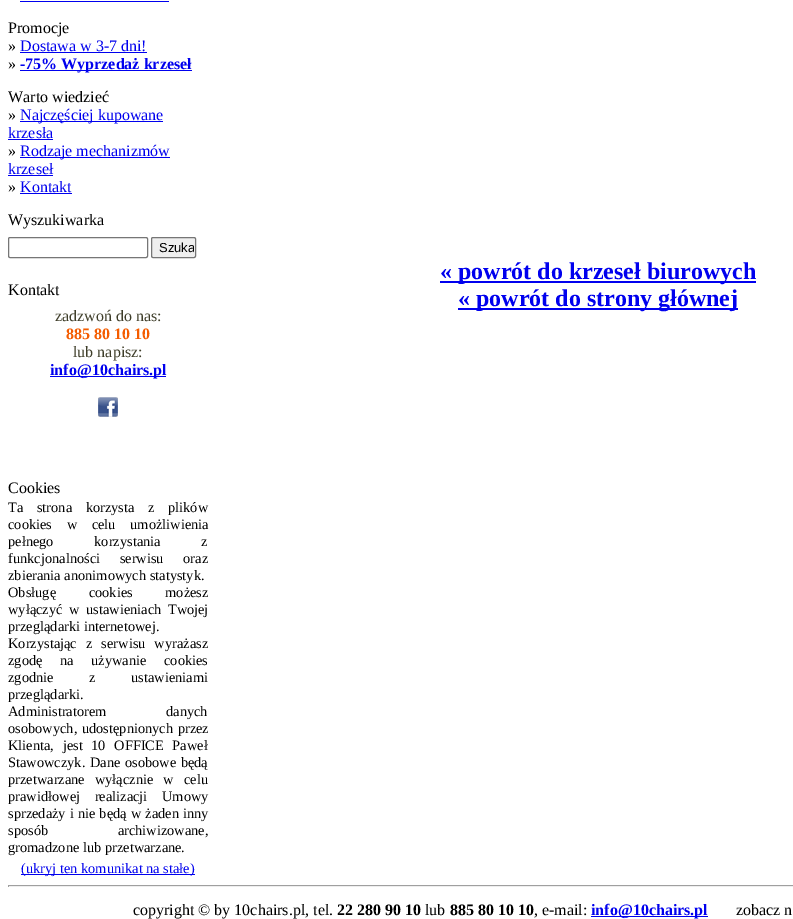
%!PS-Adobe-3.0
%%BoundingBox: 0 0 793 919
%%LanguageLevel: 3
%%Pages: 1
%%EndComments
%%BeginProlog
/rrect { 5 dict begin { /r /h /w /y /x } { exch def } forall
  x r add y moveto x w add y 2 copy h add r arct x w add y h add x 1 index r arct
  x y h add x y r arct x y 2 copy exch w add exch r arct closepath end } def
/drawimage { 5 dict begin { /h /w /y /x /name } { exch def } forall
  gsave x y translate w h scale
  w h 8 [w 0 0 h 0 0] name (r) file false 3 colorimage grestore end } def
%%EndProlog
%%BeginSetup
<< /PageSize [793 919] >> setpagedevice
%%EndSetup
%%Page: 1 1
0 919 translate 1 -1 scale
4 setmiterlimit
1 setgray
0 0 793 919 rectfill
0 0 0.933 setrgbcolor
20 1 149 1 rectfill
20 52 127 1 rectfill
20 70 172 1 rectfill
20 121 143 1 rectfill
8 139 45 1 rectfill
20 157 150 1 rectfill
8 175 45 1 rectfill
20 193 52 1 rectfill
0.463 setgray
8.5 237.5 139 20 1.5 rrect stroke
0.937 setgray
151.5 237.5 44 20 1.5 rrect gsave fill grestore
0.463 setgray
stroke
0 0 0.933 setrgbcolor
50 376 116 1 rectfill
(images/1.raw) 98 397 20 20 drawimage
21 874 174 1 rectfill
440 281 316 2 rectfill
458 308 280 2 rectfill
0.624 setgray
8 885 785 1 rectfill
0.933 setgray
8 886 785 1 rectfill
0.624 setgray
8 885 1 2 rectfill
0 0 0.933 setrgbcolor
591 916 117 1 rectfill
/LiberationSerif-Regular [16 0 0 -16 0 0] selectfont
0 setgray
8 33 moveto (Promocje) show
8 51 moveto (») show
0 0 0.933 setrgbcolor
20 51 moveto (Dostawa w 3-7 dni!) show
0 setgray
8 69 moveto (») show
/LiberationSerif-Bold [16 0 0 -16 0 0] selectfont
0 0 0.933 setrgbcolor
20 69 moveto (-75% Wyprzedaż krzeseł) show
/LiberationSerif-Regular [16 0 0 -16 0 0] selectfont
0 setgray
8 102 moveto (Warto wiedzieć) show
8 120 moveto (») show
0 0 0.933 setrgbcolor
20 120 moveto (Najczęściej kupowane) show
8 138 moveto (krzesła) show
0 setgray
8 156 moveto (») show
0 0 0.933 setrgbcolor
20 156 moveto (Rodzaje mechanizmów) show
8 174 moveto (krzeseł) show
0 setgray
8 192 moveto (») show
0 0 0.933 setrgbcolor
20 192 moveto (Kontakt) show
0 setgray
8 225 moveto (Wyszukiwarka) show
gsave
153 239 41 17 rectclip
/LiberationSans-Regular [13 0 0 -13 0 0] selectfont
159 252 moveto (Szuka) show
grestore
8 295 moveto (Kontakt) show
0.243 0.239 0.161 setrgbcolor
55 321 moveto (zadzwoń do nas:) show
/LiberationSerif-Bold [16 0 0 -16 0 0] selectfont
0.957 0.361 0 setrgbcolor
66 339 moveto (885 80 10 10) show
/LiberationSerif-Regular [16 0 0 -16 0 0] selectfont
0.243 0.239 0.161 setrgbcolor
73 357 moveto (lub napisz:) show
/LiberationSerif-Bold [16 0 0 -16 0 0] selectfont
0 0 0.933 setrgbcolor
50 375 moveto (info@10chairs.pl) show
/LiberationSerif-Regular [16 0 0 -16 0 0] selectfont
0 setgray
8 493 moveto (Cookies) show
/LiberationSerif-Regular [14.4 0 0 -14.4 0 0] selectfont
8 512 moveto 10 0 32 (Ta strona korzysta z plików) widthshow
8 529 moveto 11 0 32 (cookies w celu umożliwienia) widthshow
8 546 moveto 37 0 32 (pełnego korzystania z) widthshow
8 563 moveto 16 0 32 (funkcjonalności serwisu oraz) widthshow
8 580 moveto (zbierania anonimowych statystyk.) show
8 597 moveto 29 0 32 (Obsługę cookies możesz) widthshow
8 614 moveto 3 0 32 (wyłączyć w ustawieniach Twojej) widthshow
8 631 moveto (przeglądarki internetowej.) show
8 648 moveto 5.5 0 32 (Korzystając z serwisu wyrażasz) widthshow
8 665 moveto 14 0 32 (zgodę na używanie cookies) widthshow
8 682 moveto 32 0 32 (zgodnie z ustawieniami) widthshow
8 699 moveto (przeglądarki.) show
8 716 moveto 56 0 32 (Administratorem danych) widthshow
8 733 moveto 1 0 32 (osobowych, udostępnionych przez) widthshow
8 750 moveto 5 0 32 (Klienta, jest 10 OFFICE Paweł) widthshow
8 767 moveto 1 0 32 (Stawowczyk. Dane osobowe będą) widthshow
8 784 moveto 6.5 0 32 (przetwarzane wyłącznie w celu) widthshow
8 801 moveto 11 0 32 (prawidłowej realizacji Umowy) widthshow
8 818 moveto 0.5 0 32 (sprzedaży i nie będą w żaden inny) widthshow
8 835 moveto 66 0 32 (sposób archiwizowane,) widthshow
8 852 moveto (gromadzone lub przetwarzane.) show
0 0 0.933 setrgbcolor
21 873 moveto (\(ukryj ten komunikat na stałe\)) show
/LiberationSerif-Bold [24 0 0 -24 0 0] selectfont
440 279 moveto (« powrót do krzeseł biurowych) show
458 306 moveto (« powrót do strony głównej) show
/LiberationSerif-Regular [16 0 0 -16 0 0] selectfont
0 setgray
133 915 moveto (copyright © by 10chairs.pl, tel.) show
/LiberationSerif-Bold [16 0 0 -16 0 0] selectfont
337 915 moveto (22 280 90 10) show
/LiberationSerif-Regular [16 0 0 -16 0 0] selectfont
425 915 moveto (lub) show
/LiberationSerif-Bold [16 0 0 -16 0 0] selectfont
450 915 moveto (885 80 10 10) show
/LiberationSerif-Regular [16 0 0 -16 0 0] selectfont
534 915 moveto (, e-mail:) show
/LiberationSerif-Bold [16 0 0 -16 0 0] selectfont
0 0 0.933 setrgbcolor
591 915 moveto (info@10chairs.pl) show
/LiberationSerif-Regular [16 0 0 -16 0 0] selectfont
0 setgray
736 915 moveto (zobacz n) show
showpage
%%EOF
